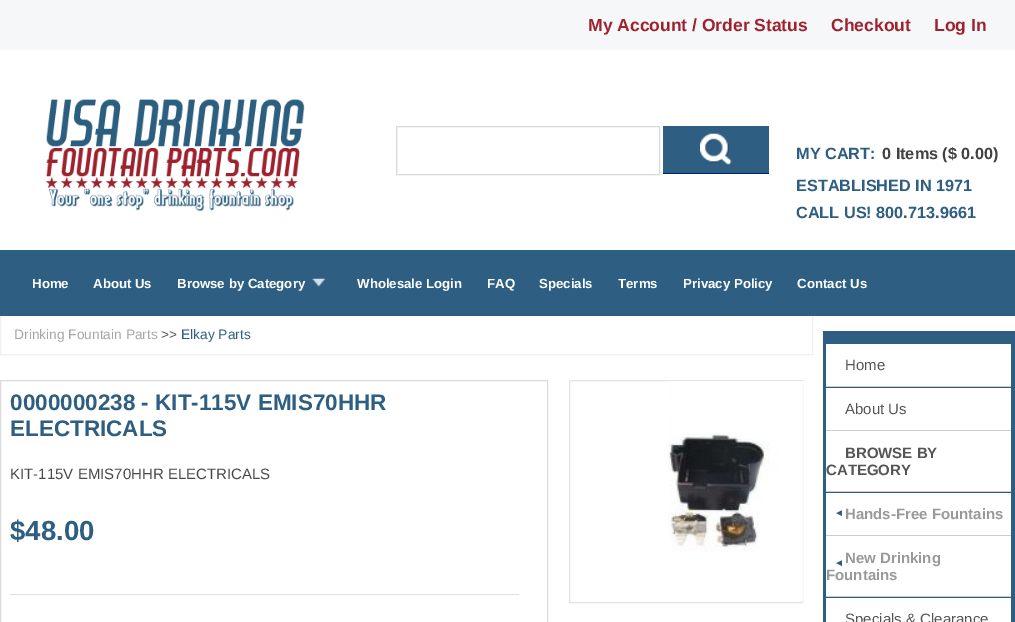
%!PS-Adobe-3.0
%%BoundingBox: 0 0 1015 622
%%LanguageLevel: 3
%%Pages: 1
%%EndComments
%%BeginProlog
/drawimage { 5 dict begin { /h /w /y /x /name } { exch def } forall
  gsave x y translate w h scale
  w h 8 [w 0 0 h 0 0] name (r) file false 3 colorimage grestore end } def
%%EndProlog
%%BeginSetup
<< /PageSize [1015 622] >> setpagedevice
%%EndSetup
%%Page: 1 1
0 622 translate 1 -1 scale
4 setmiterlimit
1 setgray
0 0 1015 622 rectfill
0.965 0.969 0.973 setrgbcolor
0 0 1015 50 rectfill
(images/1.raw) 45 99 260 113 drawimage
0.851 setgray
396.5 126.5 263 48 rectstroke
0.18 0.369 0.506 setrgbcolor
663 126 106 47 rectfill
0 0.141 0.42 setrgbcolor
663 173 106 1 rectfill
(images/2.raw) 700 133 32 32 drawimage
0.941 setgray
0.5 313.5 812 41 rectstroke
0.18 0.369 0.506 setrgbcolor
0 250 1015 66 rectfill
(images/3.raw) 312 278 14 9 drawimage
0.855 setgray
0.5 380.5 547 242 rectstroke
0.871 setgray
10 594 509 1 rectfill
0.89 setgray
569.5 380.5 233 222 rectstroke
(images/4.raw) 668 381 135 221 drawimage
0.18 0.369 0.506 setrgbcolor
823 331 192 291 rectfill
0.8 setgray
826 386 185 1 rectfill
1 setgray
826 344 185 42 rectfill
0.8 setgray
826 430 185 1 rectfill
1 setgray
826 388 185 42 rectfill
0.8 setgray
826 491 185 1 rectfill
1 setgray
826 431 185 60 rectfill
0.8 setgray
826 535 185 1 rectfill
1 setgray
826 493 185 42 rectfill
0.8 setgray
826 596 185 1 rectfill
1 setgray
826 536 185 60 rectfill
826 598 185 24 rectfill
/LiberationSans-Bold [17.5 0 0 -17.5 0 0] selectfont
0.62 0.133 0.176 setrgbcolor
588 31 moveto (My Account / Order Status) show
831 31 moveto (Checkout) show
934 31 moveto (Log In) show
/LiberationSans-Bold [16.25 0 0 -16.25 0 0] selectfont
0.18 0.369 0.506 setrgbcolor
796 159 moveto (MY CART:) show
0.259 0.255 0.255 setrgbcolor
882 159 moveto (0 Items \($ 0.00\)) show
0.18 0.369 0.506 setrgbcolor
796 191 moveto (ESTABLISHED IN 1971) show
796 218 moveto (CALL US! 800.713.9661) show
/LiberationSans-Bold [13.25 0 0 -13.25 0 0] selectfont
1 setgray
32 288 moveto (Home) show
93 288 moveto (About Us) show
177 288 moveto (Browse by Category) show
357 288 moveto (Wholesale Login) show
487 288 moveto (FAQ) show
539 288 moveto (Specials) show
618 288 moveto (Terms) show
683 288 moveto (Privacy Policy) show
797 288 moveto (Contact Us) show
/LiberationSans-Regular [13.75 0 0 -13.75 0 0] selectfont
0.655 setgray
14 339 moveto (Drinking Fountain Parts) show
0.333 setgray
161 339 moveto (>>) show
0.18 0.369 0.506 setrgbcolor
181 339 moveto (Elkay Parts) show
/LiberationSans-Bold [22.5 0 0 -22.5 0 0] selectfont
10 410 moveto (0000000238 - KIT-115V EMIS70HHR) show
10 436 moveto (ELECTRICALS) show
/LiberationSans-Regular [15 0 0 -15 0 0] selectfont
0.29 0.286 0.286 setrgbcolor
10 479 moveto (KIT-115V EMIS70HHR ELECTRICALS) show
/LiberationSans-Bold [27.5 0 0 -27.5 0 0] selectfont
0.18 0.369 0.506 setrgbcolor
10 540 moveto ($48.00) show
/LiberationSans-Regular [15 0 0 -15 0 0] selectfont
0.333 setgray
845 370 moveto (Home) show
845 414 moveto (About Us) show
/LiberationSans-Bold [15 0 0 -15 0 0] selectfont
845 458 moveto (BROWSE BY) show
826 475 moveto (CATEGORY) show
/LiberationSans-Bold [10 0 0 -10 0 0] selectfont
0.18 0.369 0.506 setrgbcolor
834 516 moveto (◄) show
/LiberationSans-Bold [15 0 0 -15 0 0] selectfont
0.6 setgray
845 519 moveto (Hands-Free Fountains) show
/LiberationSans-Bold [10 0 0 -10 0 0] selectfont
0.18 0.369 0.506 setrgbcolor
834 566 moveto (◄) show
/LiberationSans-Bold [15 0 0 -15 0 0] selectfont
0.6 setgray
845 563 moveto (New Drinking) show
826 580 moveto (Fountains) show
/LiberationSans-Regular [15 0 0 -15 0 0] selectfont
0.333 setgray
845 624 moveto (Specials & Clearance) show
showpage
%%EOF
